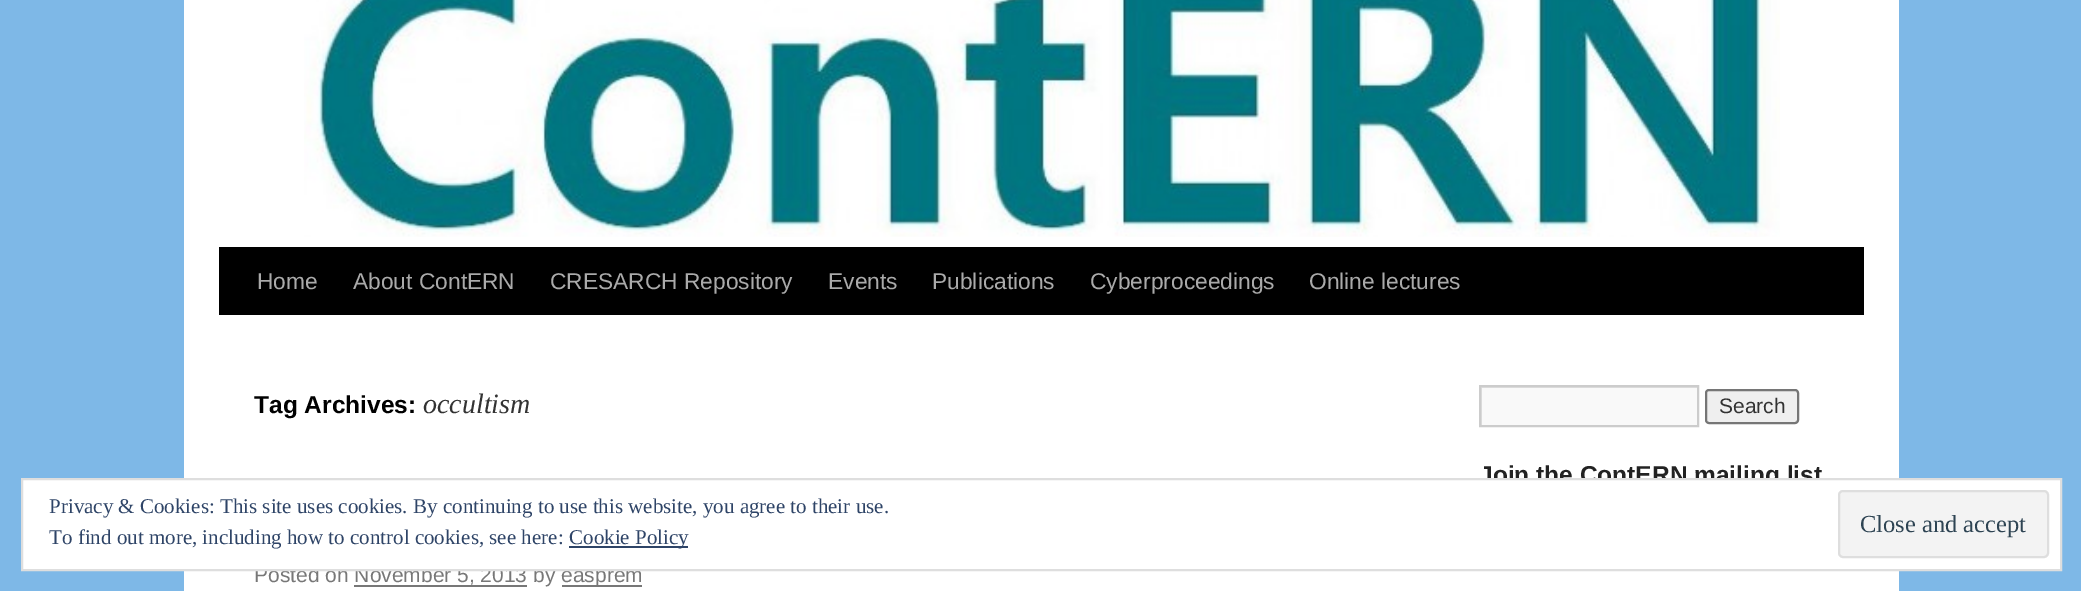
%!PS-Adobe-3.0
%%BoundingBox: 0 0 2081 591
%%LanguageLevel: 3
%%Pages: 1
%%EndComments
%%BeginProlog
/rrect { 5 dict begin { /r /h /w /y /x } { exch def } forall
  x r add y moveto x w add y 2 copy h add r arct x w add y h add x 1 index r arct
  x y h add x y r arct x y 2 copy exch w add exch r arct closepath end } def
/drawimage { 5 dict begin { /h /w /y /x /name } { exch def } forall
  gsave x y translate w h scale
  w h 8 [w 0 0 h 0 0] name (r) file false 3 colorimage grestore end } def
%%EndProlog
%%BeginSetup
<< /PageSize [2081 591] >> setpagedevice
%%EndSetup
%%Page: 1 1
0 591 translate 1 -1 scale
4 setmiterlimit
0.494 0.722 0.906 setrgbcolor
0 0 2081 591 rectfill
1 setgray
184 0 1715 591 rectfill
0 setgray
219 247 1645 68 rectfill
(images/1.raw) 304 0 1476 237 drawimage
0.467 setgray
562 585 80 2 rectfill
354 585 173 2 rectfill
0.976 setgray
1482 388 215 37 rectfill
gsave
1481 387 217 38 rectclip
0.878 setgray
newpath 1307 214 moveto 1871 214 lineto 1871 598 lineto 1307 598 lineto closepath 1482 388 moveto 1699 388 lineto 1699 427 lineto 1482 427 lineto closepath eofill
grestore
0.8 setgray
2 setlinewidth
1480 386 218 40 rectstroke
0.937 setgray
1706 390 92 33 3 rrect gsave fill grestore
0.463 setgray
stroke
/LiberationSans-Regular [22.75 0 0 -22.75 0 0] selectfont
0.667 setgray
257 289 moveto (Home) show
353 289 moveto (About ContERN) show
550 289 moveto (CRESARCH Repository) show
828 289 moveto (Events) show
932 289 moveto (Publications) show
1090 289 moveto (Cyberproceedings) show
1309 289 moveto (Online lectures) show
/LiberationSans-Bold [24.5 0 0 -24.5 0 0] selectfont
0 setgray
254 413 moveto (Tag Archives:) show
/LiberationSerif-Italic [28 0 0 -28 0 0] selectfont
0.2 setgray
423 413 moveto (occultism) show
/LiberationSans-Regular [21 0 0 -21 0 0] selectfont
0.467 setgray
254 582 moveto (Posted on November 5, 2013 by) show
561 582 moveto (easprem) show
0.2 setgray
1719 413 moveto (Search) show
/LiberationSans-Bold [24.5 0 0 -24.5 0 0] selectfont
0.133 setgray
1479 483 moveto (Join the ContERN mailing list) show
1 setgray
newpath 22 479 moveto 2061 479 lineto 2061 570 lineto 22 570 lineto closepath gsave fill grestore
0.871 setgray
stroke
/LiberationSerif-Regular [21 0 0 -21 0 0] selectfont
0.18 0.267 0.404 setrgbcolor
49 513 moveto (Privacy & Cookies: This site uses cookies. By continuing to use this website, you agree to their use.) show
49 544 moveto (To find out more, including how to control cookies, see here:) show
569 546 119 2 rectfill
569 544 moveto (Cookie Policy) show
0.953 setgray
1839 491 209 66 4 rrect gsave fill grestore
0.871 setgray
stroke
/LiberationSerif-Regular [24.5 0 0 -24.5 0 0] selectfont
0.18 0.267 0.325 setrgbcolor
1860 532 moveto (Close and accept) show
showpage
%%EOF
